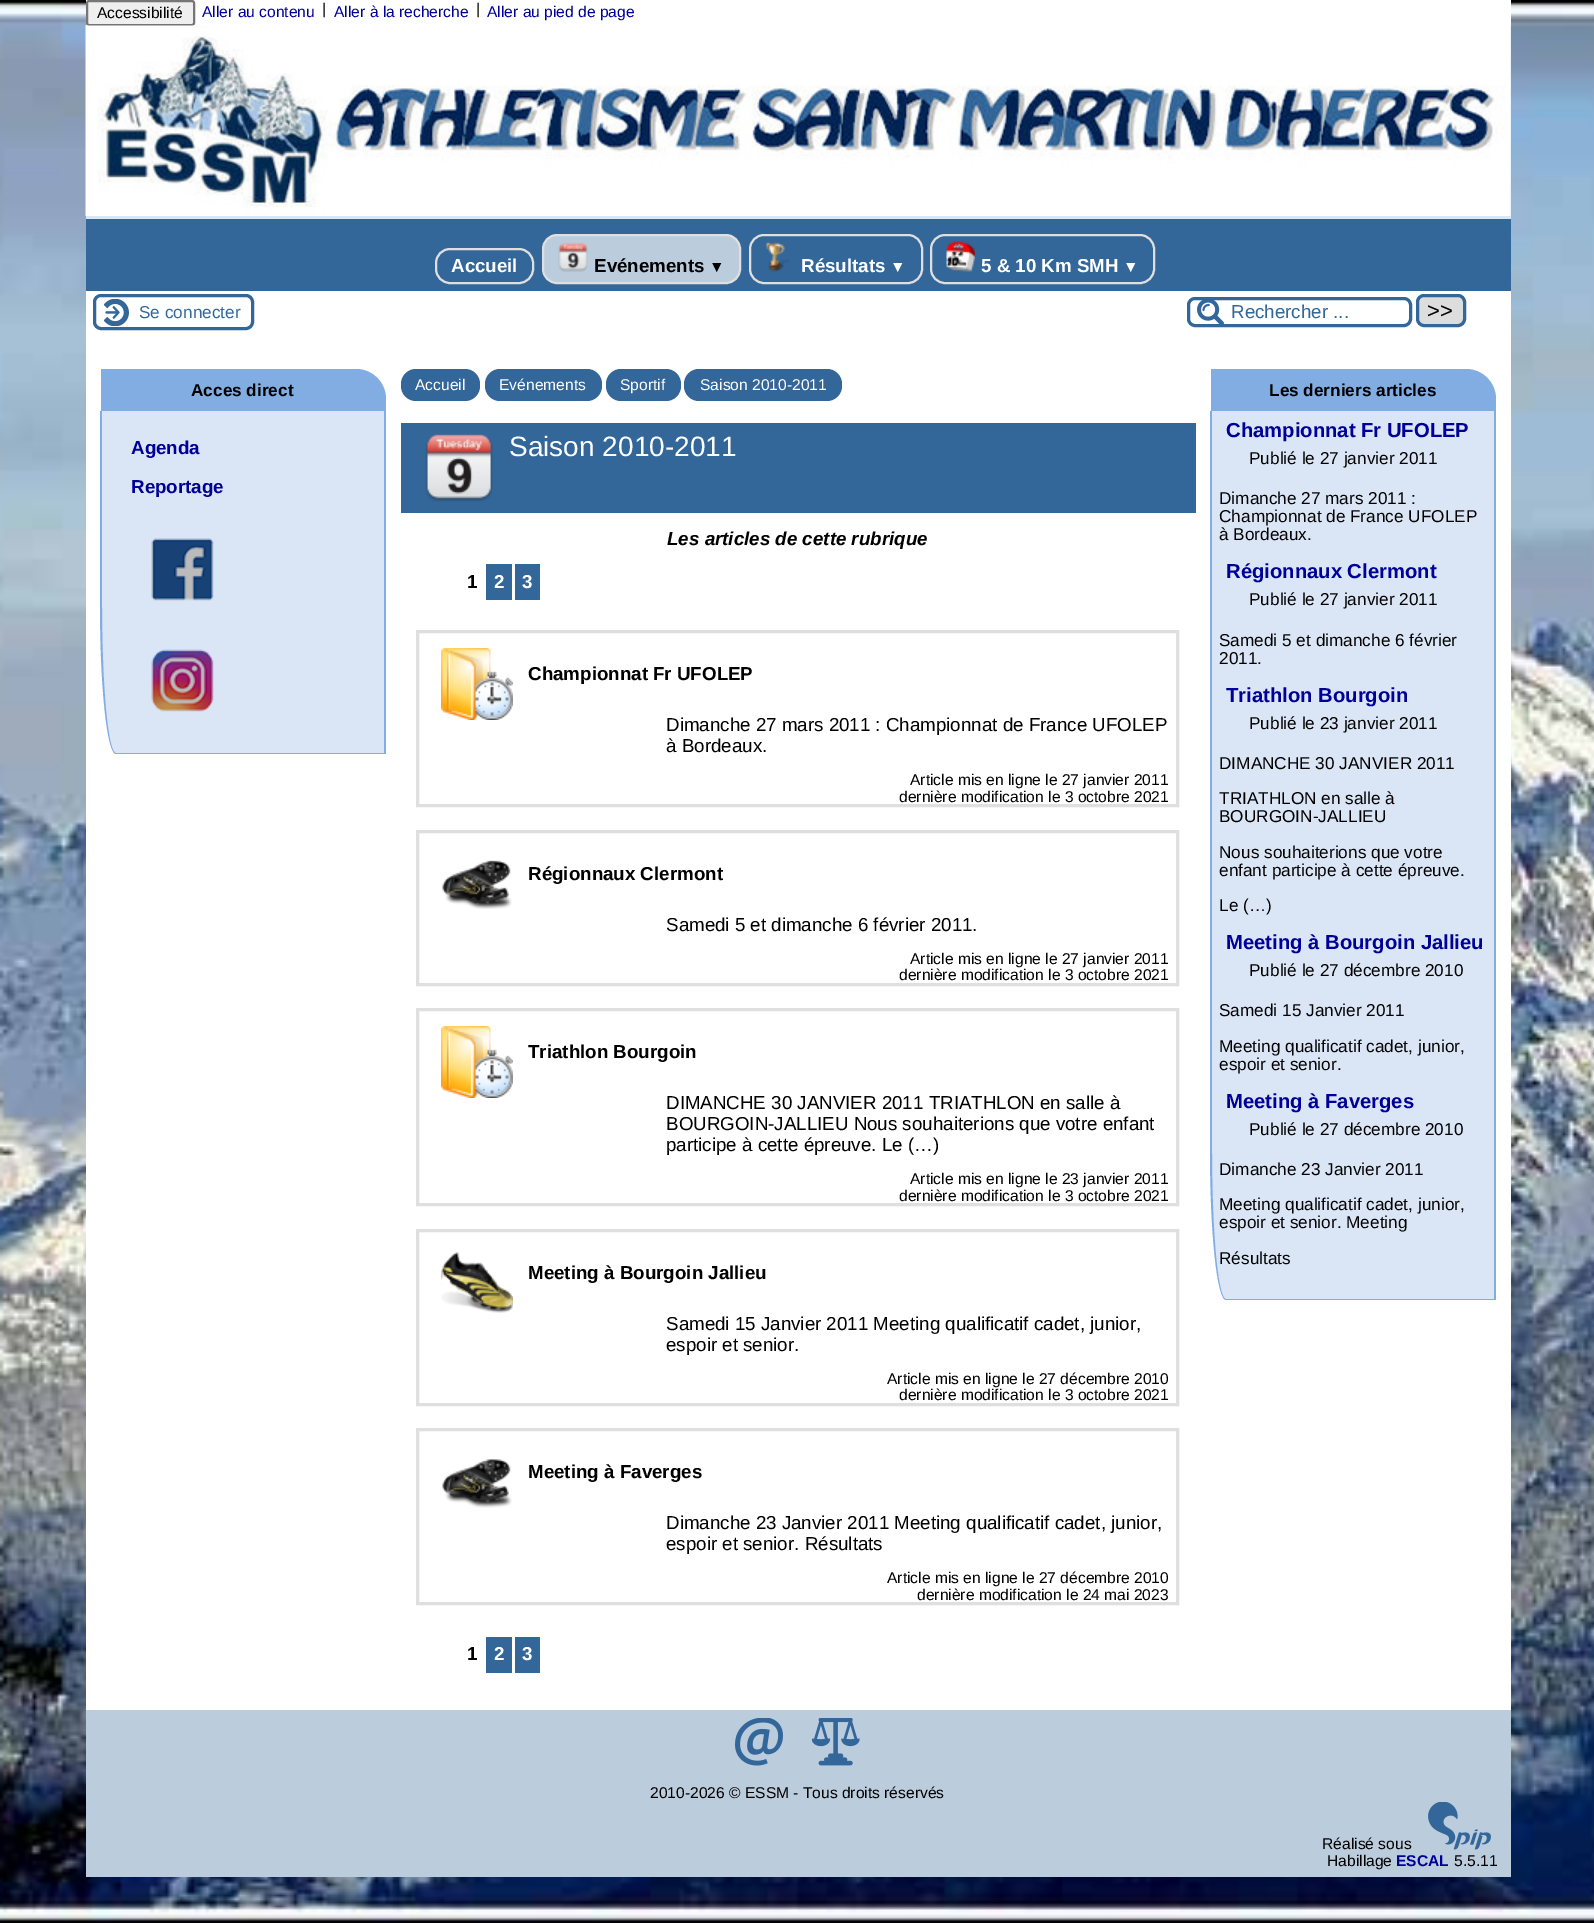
%!PS-Adobe-3.0
%%BoundingBox: 0 0 1594 1923
%%LanguageLevel: 3
%%Pages: 1
%%EndComments
%%BeginProlog
/rrect { 5 dict begin { /r /h /w /y /x } { exch def } forall
  x r add y moveto x w add y 2 copy h add r arct x w add y h add x 1 index r arct
  x y h add x y r arct x y 2 copy exch w add exch r arct closepath end } def
/drawimage { 5 dict begin { /h /w /y /x /name } { exch def } forall
  gsave x y translate w h scale
  w h 8 [w 0 0 h 0 0] name (r) file false 3 colorimage grestore end } def
%%EndProlog
%%BeginSetup
<< /PageSize [1594 1923] >> setpagedevice
%%EndSetup
%%Page: 1 1
0 1923 translate 1 -1 scale
4 setmiterlimit
1 setgray
0 0 1594 1923 rectfill
(images/1.raw) 0 0 1594 1923 drawimage
86 291 1425 1419 rectfill
0.855 0.902 0.965 setrgbcolor
86 26 1425 193 rectfill
1 setgray
86 0 1425 26 rectfill
0.937 setgray
87 1 107 24 2 rrect gsave fill grestore
0.463 setgray
2 setlinewidth
stroke
(images/2.raw) 85 25 1426 191 drawimage
0.2 0.4 0.6 setrgbcolor
86 219 1425 72 rectfill
0.875 setgray
436 249 97 34 14 rrect stroke
0.733 0.8 0.867 setrgbcolor
543 235 197 48 14 rrect gsave fill grestore
0.875 setgray
stroke
(images/3.raw) 558 242 30 30 drawimage
750 235 172 48 14 rrect stroke
(images/4.raw) 765 241 25 31 drawimage
931 235 223 48 14 rrect stroke
(images/5.raw) 946 241 29 31 drawimage
(images/6.raw) 104 299 25 27 drawimage
0.2 0.4 0.6 setrgbcolor
3 setlinewidth
94.5 295.5 158 33 6.5 rrect stroke
(images/7.raw) 1197 300 27 24 drawimage
1188.5 298.5 222 27 6.5 rrect stroke
0.867 setgray
1417.5 295.5 47 30 6.5 rrect gsave fill grestore
0.2 0.4 0.6 setrgbcolor
stroke
0.51 0.678 0.886 setrgbcolor
newpath 101 369 moveto 356 369 lineto 372.5 369 386 382.5 386 399 curveto 386 411 lineto 101 411 lineto closepath fill
0.855 0.902 0.965 setrgbcolor
newpath 102 411 moveto 384 411 lineto 384 753 lineto 116 753 lineto 108 753 102 687 102 604 curveto closepath fill
0.51 0.678 0.886 setrgbcolor
newpath 100 411 moveto 386 411 lineto 386 754 lineto 116 754 lineto 107 754 100 687 100 604 curveto closepath 102 411 moveto 384 411 lineto 384 753 lineto 116 753 lineto 108 753 102 687 102 604 curveto closepath eofill
(images/8.raw) 151 538 63 63 drawimage
(images/9.raw) 151 649 63 63 drawimage
0.2 0.4 0.6 setrgbcolor
401 369 79 32 15 rrect fill
485 369 117 32 15 rrect fill
606 369 75 32 15 rrect fill
684 369 158 32 15 rrect fill
401 423 795 90 rectfill
(images/10.raw) 425 434 68 68 drawimage
486 564 26 36 rectfill
515 564 25 36 rectfill
0.875 setgray
417.5 631.5 760 174 rectstroke
(images/11.raw) 441 648 72 72 drawimage
417.5 831.5 760 153 rectstroke
(images/12.raw) 442 860 70 49 drawimage
417.5 1009.5 760 195 rectstroke
(images/11.raw) 441 1026 72 72 drawimage
417.5 1230.5 760 174 rectstroke
(images/13.raw) 441 1252 72 61 drawimage
417.5 1429.5 760 174 rectstroke
(images/14.raw) 442 1459 70 49 drawimage
0.2 0.4 0.6 setrgbcolor
486 1637 26 36 rectfill
515 1637 25 36 rectfill
0.51 0.678 0.886 setrgbcolor
newpath 1211 369 moveto 1466 369 lineto 1482.5 369 1496 382.5 1496 399 curveto 1496 411 lineto 1211 411 lineto closepath fill
0.855 0.902 0.965 setrgbcolor
newpath 1212 411 moveto 1494 411 lineto 1494 1299 lineto 1226 1299 lineto 1218 1299 1212 1233 1212 1150 curveto closepath fill
0.51 0.678 0.886 setrgbcolor
newpath 1210 411 moveto 1496 411 lineto 1496 1300 lineto 1226 1300 lineto 1217 1300 1210 1233 1210 1150 curveto closepath 1212 411 moveto 1494 411 lineto 1494 1299 lineto 1226 1299 lineto 1218 1299 1212 1233 1212 1150 curveto closepath eofill
0.733 0.8 0.867 setrgbcolor
86 1710 1425 167 rectfill
(images/15.raw) 735 1718 48 48 drawimage
(images/16.raw) 812 1718 48 48 drawimage
(images/17.raw) 1428 1802 63 48 drawimage
/LiberationSans-Regular [15.6 0 0 -15.6 0 0] selectfont
0 setgray
97 18 moveto (Accessibilité) show
0 0 0.6 setrgbcolor
202 17 moveto (Aller au contenu) show
0 setgray
322 14 moveto (|) show
0 0 0.6 setrgbcolor
334 17 moveto (Aller à la recherche) show
0 setgray
476 14 moveto (|) show
0 0 0.6 setrgbcolor
487 17 moveto (Aller au pied de page) show
/LiberationSans-Bold [18.75 0 0 -18.75 0 0] selectfont
1 setgray
451 272 moveto (Accueil) show
0 setgray
594 272 moveto (Evénements) show
/LiberationSans-Bold [15.6 0 0 -15.6 0 0] selectfont
709 272 moveto (▼) show
/LiberationSans-Bold [18.75 0 0 -18.75 0 0] selectfont
1 setgray
801 272 moveto (Résultats) show
/LiberationSans-Bold [15.6 0 0 -15.6 0 0] selectfont
890 272 moveto (▼) show
/LiberationSans-Bold [18.75 0 0 -18.75 0 0] selectfont
981 272 moveto (5 & 10 Km SMH) show
/LiberationSans-Bold [15.6 0 0 -15.6 0 0] selectfont
1123 272 moveto (▼) show
/LiberationSans-Regular [17.2 0 0 -17.2 0 0] selectfont
0.2 0.4 0.6 setrgbcolor
139 318 moveto (Se connecter) show
/LiberationSans-Regular [18.75 0 0 -18.75 0 0] selectfont
1231 318 moveto (Rechercher ...) show
/LiberationSans-Regular [22 0 0 -22 0 0] selectfont
0 setgray
1427 318 moveto (>>) show
/LiberationSans-Bold [17.2 0 0 -17.2 0 0] selectfont
191 396 moveto (Acces direct) show
/LiberationSans-Bold [18.75 0 0 -18.75 0 0] selectfont
0 0 0.6 setrgbcolor
131 454 moveto (Agenda) show
131 493 moveto (Reportage) show
/LiberationSans-Regular [15.6 0 0 -15.6 0 0] selectfont
1 setgray
415 390 moveto (Accueil) show
499 390 moveto (Evénements) show
620 390 moveto (Sportif) show
700 390 moveto (Saison 2010-2011) show
/LiberationSans-Regular [28 0 0 -28 0 0] selectfont
509 456 moveto (Saison 2010-2011) show
/LiberationSans-BoldItalic [18.75 0 0 -18.75 0 0] selectfont
0 setgray
667 545 moveto (Les articles de cette rubrique) show
/LiberationSans-Bold [18.75 0 0 -18.75 0 0] selectfont
467 588 moveto (1) show
1 setgray
494 588 moveto (2) show
522 588 moveto (3) show
0 setgray
528 680 moveto (Championnat Fr UFOLEP) show
/LiberationSans-Regular [18.75 0 0 -18.75 0 0] selectfont
666 731 moveto (Dimanche 27 mars 2011 : Championnat de France UFOLEP) show
666 752 moveto (à Bordeaux.) show
/LiberationSans-Regular [15.6 0 0 -15.6 0 0] selectfont
910 785 moveto (Article mis en ligne le 27 janvier 2011) show
899 802 moveto (dernière modification le 3 octobre 2021) show
/LiberationSans-Bold [18.75 0 0 -18.75 0 0] selectfont
528 880 moveto (Régionnaux Clermont) show
/LiberationSans-Regular [18.75 0 0 -18.75 0 0] selectfont
666 931 moveto (Samedi 5 et dimanche 6 février 2011.) show
/LiberationSans-Regular [15.6 0 0 -15.6 0 0] selectfont
910 964 moveto (Article mis en ligne le 27 janvier 2011) show
899 980 moveto (dernière modification le 3 octobre 2021) show
/LiberationSans-Bold [18.75 0 0 -18.75 0 0] selectfont
528 1058 moveto (Triathlon Bourgoin) show
/LiberationSans-Regular [18.75 0 0 -18.75 0 0] selectfont
666 1109 moveto (DIMANCHE 30 JANVIER 2011 TRIATHLON en salle à) show
666 1130 moveto (BOURGOIN-JALLIEU Nous souhaiterions que votre enfant) show
666 1151 moveto (participe à cette épreuve. Le \(…\)) show
/LiberationSans-Regular [15.6 0 0 -15.6 0 0] selectfont
910 1184 moveto (Article mis en ligne le 23 janvier 2011) show
899 1201 moveto (dernière modification le 3 octobre 2021) show
/LiberationSans-Bold [18.75 0 0 -18.75 0 0] selectfont
528 1279 moveto (Meeting à Bourgoin Jallieu) show
/LiberationSans-Regular [18.75 0 0 -18.75 0 0] selectfont
666 1330 moveto (Samedi 15 Janvier 2011 Meeting qualificatif cadet, junior,) show
666 1351 moveto (espoir et senior.) show
/LiberationSans-Regular [15.6 0 0 -15.6 0 0] selectfont
887 1384 moveto (Article mis en ligne le 27 décembre 2010) show
899 1400 moveto (dernière modification le 3 octobre 2021) show
/LiberationSans-Bold [18.75 0 0 -18.75 0 0] selectfont
528 1478 moveto (Meeting à Faverges) show
/LiberationSans-Regular [18.75 0 0 -18.75 0 0] selectfont
666 1529 moveto (Dimanche 23 Janvier 2011 Meeting qualificatif cadet, junior,) show
666 1550 moveto (espoir et senior. Résultats) show
/LiberationSans-Regular [15.6 0 0 -15.6 0 0] selectfont
887 1583 moveto (Article mis en ligne le 27 décembre 2010) show
917 1600 moveto (dernière modification le 24 mai 2023) show
/LiberationSans-Bold [18.75 0 0 -18.75 0 0] selectfont
467 1660 moveto (1) show
1 setgray
494 1660 moveto (2) show
522 1660 moveto (3) show
/LiberationSans-Bold [17.2 0 0 -17.2 0 0] selectfont
0 setgray
1269 396 moveto (Les derniers articles) show
/LiberationSans-Bold [20.25 0 0 -20.25 0 0] selectfont
0 0 0.6 setrgbcolor
1226 437 moveto (Championnat Fr UFOLEP) show
/LiberationSans-Regular [17.2 0 0 -17.2 0 0] selectfont
0 setgray
1249 464 moveto (Publié le 27 janvier 2011) show
1219 504 moveto (Dimanche 27 mars 2011 :) show
1219 522 moveto (Championnat de France UFOLEP) show
1219 540 moveto (à Bordeaux.) show
/LiberationSans-Bold [20.25 0 0 -20.25 0 0] selectfont
0 0 0.6 setrgbcolor
1226 578 moveto (Régionnaux Clermont) show
/LiberationSans-Regular [17.2 0 0 -17.2 0 0] selectfont
0 setgray
1249 605 moveto (Publié le 27 janvier 2011) show
1219 646 moveto (Samedi 5 et dimanche 6 février) show
1219 664 moveto (2011.) show
/LiberationSans-Bold [20.25 0 0 -20.25 0 0] selectfont
0 0 0.6 setrgbcolor
1226 702 moveto (Triathlon Bourgoin) show
/LiberationSans-Regular [17.2 0 0 -17.2 0 0] selectfont
0 setgray
1249 729 moveto (Publié le 23 janvier 2011) show
1219 769 moveto (DIMANCHE 30 JANVIER 2011) show
1219 804 moveto (TRIATHLON en salle à) show
1219 822 moveto (BOURGOIN-JALLIEU) show
1219 858 moveto (Nous souhaiterions que votre) show
1219 876 moveto (enfant participe à cette épreuve.) show
1219 911 moveto (Le \(…\)) show
/LiberationSans-Bold [20.25 0 0 -20.25 0 0] selectfont
0 0 0.6 setrgbcolor
1226 949 moveto (Meeting à Bourgoin Jallieu) show
/LiberationSans-Regular [17.2 0 0 -17.2 0 0] selectfont
0 setgray
1249 976 moveto (Publié le 27 décembre 2010) show
1219 1016 moveto (Samedi 15 Janvier 2011) show
1219 1052 moveto (Meeting qualificatif cadet, junior,) show
1219 1070 moveto (espoir et senior.) show
/LiberationSans-Bold [20.25 0 0 -20.25 0 0] selectfont
0 0 0.6 setrgbcolor
1226 1108 moveto (Meeting à Faverges) show
/LiberationSans-Regular [17.2 0 0 -17.2 0 0] selectfont
0 setgray
1249 1135 moveto (Publié le 27 décembre 2010) show
1219 1175 moveto (Dimanche 23 Janvier 2011) show
1219 1210 moveto (Meeting qualificatif cadet, junior,) show
1219 1228 moveto (espoir et senior. Meeting) show
1219 1264 moveto (Résultats) show
/LiberationSans-Regular [15.6 0 0 -15.6 0 0] selectfont
650 1798 moveto (2010-2026 © ESSM - Tous droits réservés) show
1322 1849 moveto (Réalisé sous) show
1327 1866 moveto (Habillage) show
/LiberationSans-Bold [15.6 0 0 -15.6 0 0] selectfont
0 0 0.6 setrgbcolor
1396 1866 moveto (ESCAL) show
/LiberationSans-Regular [15.6 0 0 -15.6 0 0] selectfont
0 setgray
1454 1866 moveto (5.5.11) show
showpage
%%EOF
